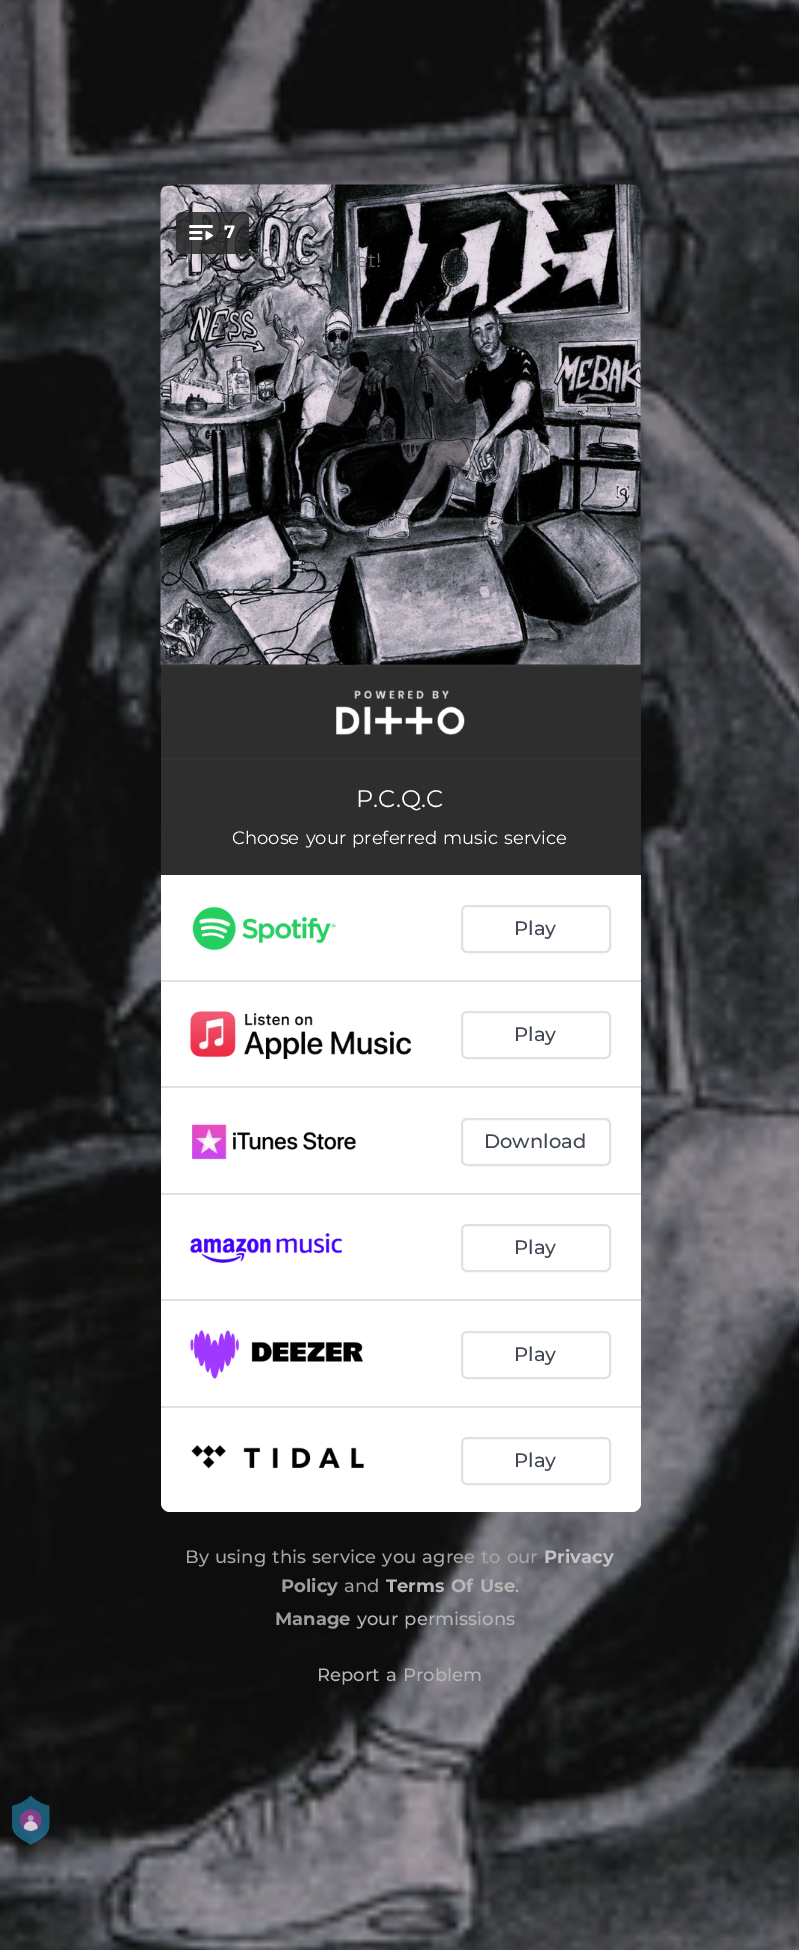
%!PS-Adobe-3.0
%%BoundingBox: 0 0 799 1950
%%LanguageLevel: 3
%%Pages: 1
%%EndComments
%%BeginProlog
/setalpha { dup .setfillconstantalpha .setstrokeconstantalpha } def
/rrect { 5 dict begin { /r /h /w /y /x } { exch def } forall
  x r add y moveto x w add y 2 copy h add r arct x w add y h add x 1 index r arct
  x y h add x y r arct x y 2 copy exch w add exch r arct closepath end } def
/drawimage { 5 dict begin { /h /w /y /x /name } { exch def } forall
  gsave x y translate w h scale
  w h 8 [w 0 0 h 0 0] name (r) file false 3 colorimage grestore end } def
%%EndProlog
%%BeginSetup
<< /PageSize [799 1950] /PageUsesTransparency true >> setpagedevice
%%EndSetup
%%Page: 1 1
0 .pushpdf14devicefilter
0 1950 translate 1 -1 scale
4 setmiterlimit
1 setgray
0 0 799 1950 rectfill
(images/1.raw) 0 0 799 1950 drawimage
(images/2.raw) 160 184 481 481 drawimage
0.85 setalpha
0.157 setgray
176 212 73 42 6 rrect fill
1 setalpha
(images/3.raw) 189 225 24 15 drawimage
0.45 setalpha
0 setgray
newpath 401 425 75 0 360 arc closepath fill
1 setalpha
0.18 setgray
161 667 480 91 rectfill
0.2 setgray
161 665 480 2 rectfill
161 758 480 2 rectfill
(images/4.raw) 336 690 129 45 drawimage
0.18 setgray
161 760 480 115 rectfill
1 setgray
newpath 161 875 moveto 641 875 lineto 641 1503 lineto 641 1508 637 1512 632 1512 curveto 170 1512 lineto 165 1512 161 1508 161 1503 curveto closepath fill
0.882 0.882 0.894 setrgbcolor
161 980 480 2 rectfill
(images/5.raw) 192 906 144 45 drawimage
2 setlinewidth
462 906 148 46 5 rrect stroke
161 1086 480 2 rectfill
(images/6.raw) 190 1011 221 48 drawimage
462 1012 148 46 5 rrect stroke
161 1193 480 2 rectfill
(images/7.raw) 192 1124 164 36 drawimage
462 1119 148 46 5 rrect stroke
161 1299 480 2 rectfill
(images/8.raw) 190 1233 152 30 drawimage
462 1225 148 46 5 rrect stroke
161 1406 480 2 rectfill
(images/9.raw) 190 1330 173 49 drawimage
462 1332 148 46 5 rrect stroke
(images/10.raw) 191 1445 173 24 drawimage
462 1438 148 46 5 rrect stroke
(images/11.raw) 12 1796 38 49 drawimage
/Montserrat-Bold [18 0 0 -18 0 0] selectfont
1 setgray
224 238 moveto (7) show
/Montserrat-Regular [19.5 0 0 -19.5 0 0] selectfont
0.427 0.424 0.451 setrgbcolor
250 267 moveto 1.5 0 32 (You're all set!) widthshow
/Montserrat-Regular [24 0 0 -24 0 0] selectfont
1 setgray
356 807 moveto (P.C.Q.C) show
/Montserrat-Regular [18 0 0 -18 0 0] selectfont
232 844 moveto 1.5 0 32 (Choose your preferred music service) widthshow
/Montserrat-Medium [19.5 0 0 -19.5 0 0] selectfont
0.255 0.278 0.329 setrgbcolor
514 935 moveto (Play) show
514 1041 moveto (Play) show
484 1148 moveto (Download) show
514 1254 moveto (Play) show
514 1361 moveto (Play) show
514 1467 moveto (Play) show
/Montserrat-Medium [18 0 0 -18 0 0] selectfont
0.651 0.651 0.655 setrgbcolor
185 1563 moveto 1.5 0 32 (By using this service you agree to our) widthshow
/Montserrat-Bold [18 0 0 -18 0 0] selectfont
0.765 0.765 0.776 setrgbcolor
544 1563 moveto (Privacy) show
0.62 setgray
281 1592 moveto (Policy) show
/Montserrat-Medium [18 0 0 -18 0 0] selectfont
344 1592 moveto (and) show
/Montserrat-Bold [18 0 0 -18 0 0] selectfont
0.714 0.714 0.722 setrgbcolor
386 1592 moveto 1.5 0 32 (Terms Of Use) widthshow
/Montserrat-Medium [18 0 0 -18 0 0] selectfont
0.765 0.765 0.776 setrgbcolor
515 1592 moveto (.) show
/Montserrat-Bold [18 0 0 -18 0 0] selectfont
0.62 setgray
275 1625 moveto (Manage) show
/Montserrat-Medium [18 0 0 -18 0 0] selectfont
0.714 0.714 0.722 setrgbcolor
357 1625 moveto 1.5 0 32 (your permissions) widthshow
317 1681 moveto 1.5 0 32 (Report a Problem) widthshow
.poppdf14devicefilter showpage
%%EOF
